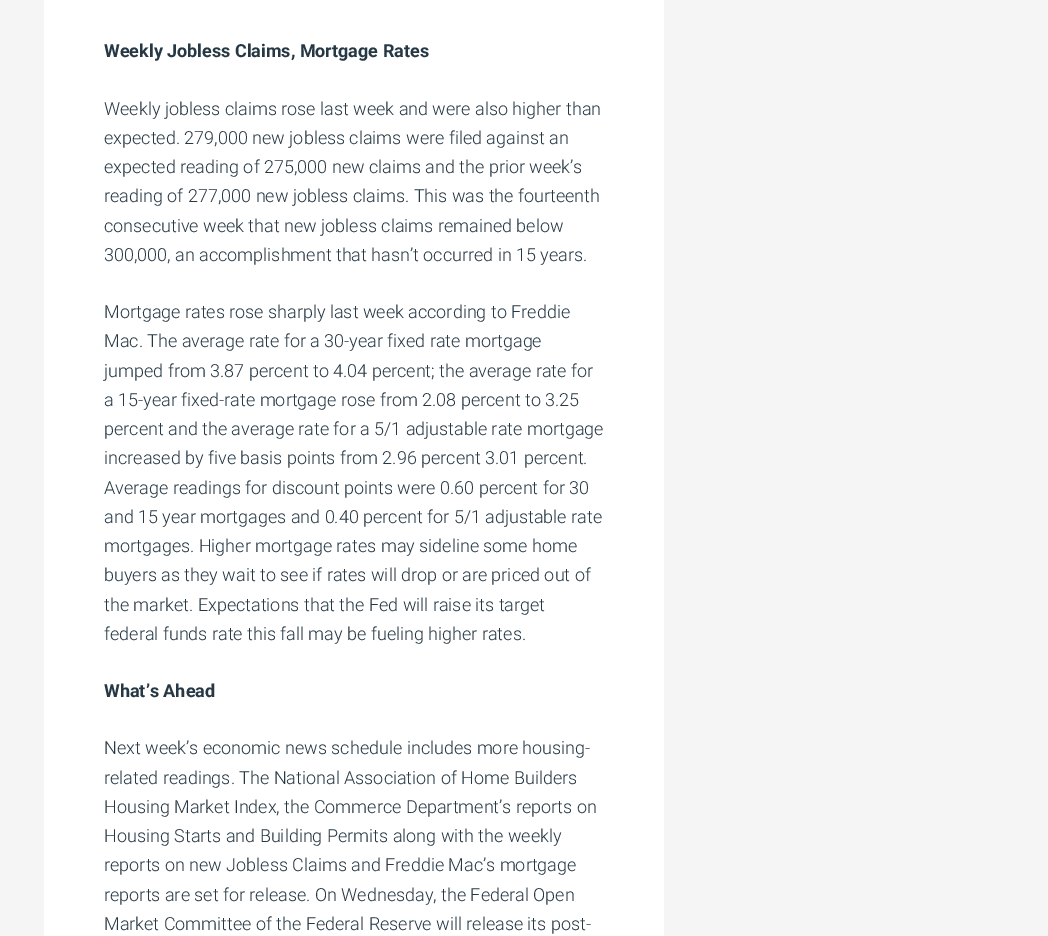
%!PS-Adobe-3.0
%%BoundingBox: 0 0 1048 936
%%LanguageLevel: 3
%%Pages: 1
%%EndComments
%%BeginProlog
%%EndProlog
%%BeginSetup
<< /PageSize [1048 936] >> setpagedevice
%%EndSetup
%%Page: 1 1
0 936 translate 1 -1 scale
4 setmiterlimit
0.961 setgray
0 0 1048 936 rectfill
1 setgray
44 0 620 936 rectfill
/Roboto-Bold [18 0 0 -18 0 0] selectfont
0.149 0.22 0.267 setrgbcolor
104 57 moveto (Weekly Jobless Claims, Mortgage Rates) show
/Roboto-Light [18 0 0 -18 0 0] selectfont
104 115 moveto (Weekly jobless claims rose last week and were also higher than) show
104 144 moveto (expected. 279,000 new jobless claims were filed against an) show
104 173 moveto (expected reading of 275,000 new claims and the prior week’s) show
104 202 moveto (reading of 277,000 new jobless claims. This was the fourteenth) show
104 232 moveto (consecutive week that new jobless claims remained below) show
104 261 moveto (300,000, an accomplishment that hasn’t occurred in 15 years.) show
104 318 moveto (Mortgage rates rose sharply last week according to Freddie) show
104 347 moveto (Mac. The average rate for a 30-year fixed rate mortgage) show
104 377 moveto (jumped from 3.87 percent to 4.04 percent; the average rate for) show
104 406 moveto (a 15-year fixed-rate mortgage rose from 2.08 percent to 3.25) show
104 435 moveto (percent and the average rate for a 5/1 adjustable rate mortgage) show
104 464 moveto (increased by five basis points from 2.96 percent 3.01 percent.) show
104 494 moveto (Average readings for discount points were 0.60 percent for 30) show
104 523 moveto (and 15 year mortgages and 0.40 percent for 5/1 adjustable rate) show
104 552 moveto (mortgages. Higher mortgage rates may sideline some home) show
104 581 moveto (buyers as they wait to see if rates will drop or are priced out of) show
104 611 moveto (the market. Expectations that the Fed will raise its target) show
104 640 moveto (federal funds rate this fall may be fueling higher rates.) show
/Roboto-Bold [18 0 0 -18 0 0] selectfont
104 697 moveto (What’s Ahead) show
/Roboto-Light [18 0 0 -18 0 0] selectfont
104 754 moveto (Next week’s economic news schedule includes more housing-) show
104 784 moveto (related readings. The National Association of Home Builders) show
104 813 moveto (Housing Market Index, the Commerce Department’s reports on) show
104 842 moveto (Housing Starts and Building Permits along with the weekly) show
104 871 moveto (reports on new Jobless Claims and Freddie Mac’s mortgage) show
104 901 moveto (reports are set for release. On Wednesday, the Federal Open) show
104 930 moveto (Market Committee of the Federal Reserve will release its post-) show
showpage
%%EOF
